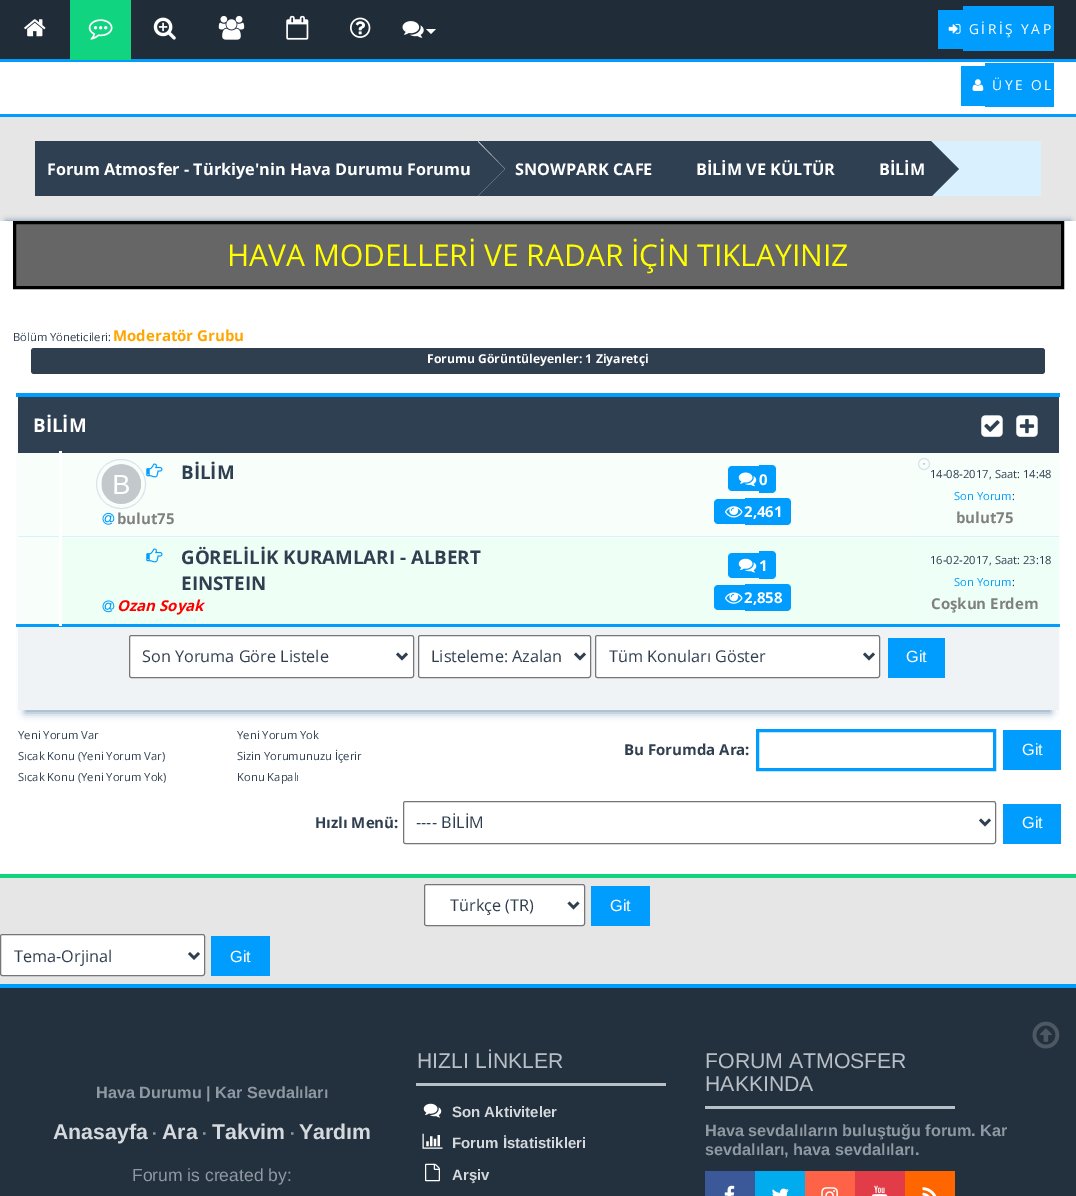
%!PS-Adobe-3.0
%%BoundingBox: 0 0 1076 1196
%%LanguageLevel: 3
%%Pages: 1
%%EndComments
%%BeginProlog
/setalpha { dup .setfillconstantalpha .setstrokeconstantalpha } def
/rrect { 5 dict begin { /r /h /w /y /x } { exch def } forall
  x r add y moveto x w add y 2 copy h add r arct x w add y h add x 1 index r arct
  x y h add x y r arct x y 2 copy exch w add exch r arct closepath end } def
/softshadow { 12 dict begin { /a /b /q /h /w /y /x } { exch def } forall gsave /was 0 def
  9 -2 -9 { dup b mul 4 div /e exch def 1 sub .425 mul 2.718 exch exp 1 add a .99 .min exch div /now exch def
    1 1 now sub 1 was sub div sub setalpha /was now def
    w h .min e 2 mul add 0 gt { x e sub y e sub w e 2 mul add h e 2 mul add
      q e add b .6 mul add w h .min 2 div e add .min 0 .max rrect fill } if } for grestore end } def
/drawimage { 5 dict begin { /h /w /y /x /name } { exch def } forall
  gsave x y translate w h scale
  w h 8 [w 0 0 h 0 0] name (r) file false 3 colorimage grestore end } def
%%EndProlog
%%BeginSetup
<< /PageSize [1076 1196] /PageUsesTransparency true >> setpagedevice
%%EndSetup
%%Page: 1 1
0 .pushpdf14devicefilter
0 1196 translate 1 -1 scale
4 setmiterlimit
0.902 setgray
0 0 1076 1196 rectfill
0.125 0.173 0.22 setrgbcolor
0 0 1076 59 rectfill
0 0.616 1 setrgbcolor
0 59 1076 3 rectfill
(images/1.raw) 24 19 22 18 drawimage
0.067 0.831 0.502 setrgbcolor
70 0 61 60 rectfill
(images/2.raw) 88 19 25 21 drawimage
(images/3.raw) 153 17 23 23 drawimage
(images/4.raw) 218 15 27 25 drawimage
(images/5.raw) 286 15 23 25 drawimage
(images/6.raw) 350 17 21 21 drawimage
(images/7.raw) 402 21 22 17 drawimage
1 setgray
newpath 426 29 moveto 436 29 lineto 431 34 lineto closepath fill
0 0.616 1 setrgbcolor
938 10 25 39 rectfill
963 6 91 45 rectfill
(images/8.raw) 948 23 13 11 drawimage
1 setgray
0 62 1076 52 rectfill
0 0.616 1 setrgbcolor
961 66 24 40 rectfill
985 63 69 44 rectfill
(images/9.raw) 972 79 12 12 drawimage
0 114 1076 3 rectfill
0.137 0.192 0.243 setrgbcolor
0 988 1076 208 rectfill
(images/10.raw) 1032 1021 28 28 drawimage
0.851 0.941 1 setrgbcolor
931 141 110 55 rectfill
0.18 0.251 0.322 setrgbcolor
35 141 623 55 rectfill
1 setgray
newpath 478 196 moveto 478 141 lineto 505 169 lineto closepath fill
gsave
35 141 1006 55 rectclip
0.18 0.251 0.322 setrgbcolor
newpath 476 198 moveto 476 140 lineto 505 169 lineto closepath fill
grestore
0.18 0.251 0.322 setrgbcolor
659 141 181 55 rectfill
gsave
35 141 1006 55 rectclip
newpath 658 198 moveto 658 140 lineto 686 169 lineto closepath fill
grestore
841 141 89 55 rectfill
gsave
35 141 1006 55 rectclip
newpath 840 198 moveto 840 140 lineto 869 169 lineto closepath fill
newpath 930 198 moveto 930 140 lineto 959 169 lineto closepath fill
grestore
0.357 0.51 0.643 setrgbcolor
6 221 1064 640 0 3 1 softshadow
1 setgray
0 221 1076 653 rectfill
0.4 setgray
newpath 14.5 222.5 moveto 1062.5 222.5 lineto 1062.5 287.5 lineto 14.5 287.5 lineto closepath gsave fill grestore
0 setgray
3 setlinewidth
stroke
0.188 0.247 0.314 setrgbcolor
31 348 1014 26 3 rrect fill
0.357 0.51 0.643 setrgbcolor
25 410 1026 303 0 4 0.7 softshadow
0.18 0.251 0.322 setrgbcolor
18 397 1041 56 rectfill
0 0.616 1 setrgbcolor
16 393 1044 4 rectfill
(images/11.raw) 981 415 22 22 drawimage
(images/12.raw) 1016 415 22 22 drawimage
0.973 1 0.984 setrgbcolor
18 453 41 171 rectfill
62 453 849 85 rectfill
0.969 1 0.984 setrgbcolor
911 453 148 85 rectfill
0.851 0.941 1 setrgbcolor
18 536 1041 1 rectfill
0.859 0.886 0.925 setrgbcolor
1 setlinewidth
newpath 121 484 24.5 0 360 arc closepath stroke
(images/13.raw) 101 464 40 40 drawimage
(images/14.raw) 146 463 17 15 drawimage
(images/15.raw) 102 512 13 13 drawimage
0 0.616 1 setrgbcolor
newpath 732 466 moveto 759 466 lineto 759 491 lineto 732 491 lineto 730 491 728 489 728 487 curveto 728 470 lineto 728 468 730 466 732 466 curveto closepath fill
newpath 759 465 moveto 772 465 lineto 774 465 776 467 776 469 curveto 776 489 lineto 776 491 774 493 772 493 curveto 759 493 lineto closepath fill
(images/16.raw) 738 472 19 15 drawimage
newpath 718 499 moveto 745 499 lineto 745 524 lineto 718 524 lineto 716 524 714 522 714 520 curveto 714 503 lineto 714 501 716 499 718 499 curveto closepath fill
newpath 745 498 moveto 787 498 lineto 789 498 791 500 791 502 curveto 791 521 lineto 791 523 789 525 787 525 curveto 745 525 lineto closepath fill
(images/17.raw) 725 506 18 12 drawimage
0.859 0.886 0.925 setrgbcolor
newpath 924 464 5.5 0 360 arc closepath stroke
(images/18.raw) 923 463 2 2 drawimage
0 0.616 1 setrgbcolor
16 624 1044 3 rectfill
1 setgray
59 451 3 175 rectfill
0.933 1 0.965 setrgbcolor
62 538 849 86 rectfill
(images/19.raw) 146 548 17 15 drawimage
(images/20.raw) 102 600 13 13 drawimage
0 0.616 1 setrgbcolor
newpath 732 553 moveto 759 553 lineto 759 578 lineto 732 578 lineto 730 578 728 576 728 574 curveto 728 557 lineto 728 555 730 553 732 553 curveto closepath fill
newpath 759 551 moveto 772 551 lineto 774 551 776 553 776 555 curveto 776 575 lineto 776 577 774 579 772 579 curveto 759 579 lineto closepath fill
(images/21.raw) 738 558 19 15 drawimage
newpath 718 585 moveto 745 585 lineto 745 610 lineto 718 610 lineto 716 610 714 608 714 606 curveto 714 589 lineto 714 587 716 585 718 585 curveto closepath fill
newpath 745 584 moveto 787 584 lineto 789 584 791 586 791 588 curveto 791 607 lineto 791 609 789 611 787 611 curveto 745 611 lineto closepath fill
(images/22.raw) 725 592 18 12 drawimage
0.929 1 0.965 setrgbcolor
911 538 148 86 rectfill
0.937 0.953 0.965 setrgbcolor
18 627 1041 83 rectfill
1 setgray
129.5 635.5 284 42 2 rrect gsave fill grestore
0.463 setgray
stroke
0.188 0.247 0.314 setrgbcolor
2.5 setlinewidth
newpath 397 653.5 moveto 402 658.5 lineto 407 653.5 lineto stroke
1 setgray
418.5 635.5 172 42 2 rrect gsave fill grestore
0.463 setgray
1 setlinewidth
stroke
0.188 0.247 0.314 setrgbcolor
2.5 setlinewidth
newpath 575 653.5 moveto 580 658.5 lineto 585 653.5 lineto stroke
1 setgray
595.5 635.5 284 42 2 rrect gsave fill grestore
0.463 setgray
1 setlinewidth
stroke
0.188 0.247 0.314 setrgbcolor
2.5 setlinewidth
newpath 864 653.5 moveto 869 658.5 lineto 874 653.5 lineto stroke
0 0.616 1 setrgbcolor
888 638 57 40 rectfill
3 setlinewidth
757.5 730.5 237 39 rectstroke
1003 730 58 40 rectfill
0.463 setgray
1 setlinewidth
403.5 801.5 592 42 2 rrect stroke
0.188 0.247 0.314 setrgbcolor
2.5 setlinewidth
newpath 980 819.5 moveto 985 824.5 lineto 990 819.5 lineto stroke
0 0.616 1 setrgbcolor
1003 804 58 40 rectfill
0.067 0.831 0.502 setrgbcolor
0 874 1076 4 rectfill
1 setgray
424.5 884.5 160 41 2 rrect gsave fill grestore
0.463 setgray
1 setlinewidth
stroke
0.188 0.247 0.314 setrgbcolor
2.5 setlinewidth
newpath 568.5 902.5 moveto 573.5 907.5 lineto 578.5 902.5 lineto stroke
0 0.616 1 setrgbcolor
591 886 59 40 rectfill
1 setgray
0.5 934.5 204 41 2 rrect gsave fill grestore
0.463 setgray
1 setlinewidth
stroke
0.188 0.247 0.314 setrgbcolor
2.5 setlinewidth
newpath 189 953 moveto 194 958 lineto 199 953 lineto stroke
0 0.616 1 setrgbcolor
211 936 59 40 rectfill
0 984 1076 4 rectfill
0.725 0.749 0.776 setrgbcolor
416 1083 250 3 rectfill
(images/23.raw) 423 1103 19 15 drawimage
(images/24.raw) 422 1133 21 16 drawimage
(images/25.raw) 425 1163 15 19 drawimage
705 1106 250 3 rectfill
0.231 0.349 0.596 setrgbcolor
705 1171 50 25 rectfill
(images/26.raw) 724 1185 11 11 drawimage
0 0.675 0.929 setrgbcolor
755 1171 50 25 rectfill
(images/27.raw) 772 1188 17 8 drawimage
1 0.388 0.278 setrgbcolor
805 1171 50 25 rectfill
(images/28.raw) 821 1187 17 9 drawimage
0.886 0.235 0.282 setrgbcolor
855 1171 50 25 rectfill
(images/29.raw) 871 1185 17 11 drawimage
1 0.4 0 setrgbcolor
905 1171 50 25 rectfill
(images/30.raw) 922 1187 15 9 drawimage
/OpenSans-Regular [13.75 0 0 -13.75 0 0] selectfont
1 setgray
969 34 moveto 2.5 0 (GİRİŞ YAP) ashow
992 90 moveto 2.5 0 (ÜYE OL) ashow
/OpenSans-Bold [16.25 0 0 -16.25 0 0] selectfont
47 175 moveto (Forum Atmosfer - Türkiye'nin Hava Durumu Forumu) show
515 175 moveto (SNOWPARK CAFE) show
696 175 moveto (BİLİM VE KÜLTÜR) show
879 175 moveto (BİLİM) show
/OpenSans-Regular [30 0 0 -30 0 0] selectfont
1 1 0 setrgbcolor
227 266 moveto (HAVA MODELLERİ VE RADAR İÇİN TIKLAYINIZ) show
/OpenSans-Regular [11.25 0 0 -11.25 0 0] selectfont
0.188 0.247 0.314 setrgbcolor
13 341 moveto (Bölüm Yöneticileri:) show
/OpenSans-Bold [15 0 0 -15 0 0] selectfont
1 0.647 0 setrgbcolor
113 341 moveto (Moderatör Grubu) show
/OpenSans-Bold [12.2 0 0 -12.2 0 0] selectfont
1 setgray
427 363 moveto (Forumu Görüntüleyenler: 1 Ziyaretçi) show
/OpenSans-Bold [18.75 0 0 -18.75 0 0] selectfont
33 432 moveto (BİLİM) show
0.188 0.247 0.314 setrgbcolor
181 479 moveto (BİLİM) show
/OpenSans-Bold [15 0 0 -15 0 0] selectfont
0.502 setgray
117 524 moveto (bulut75) show
1 setgray
759 485 moveto (0) show
744 517 moveto (2,461) show
/OpenSans-Regular [11.25 0 0 -11.25 0 0] selectfont
0.188 0.247 0.314 setrgbcolor
930 478 moveto (14-08-2017, Saat: 14:48) show
0 0.616 1 setrgbcolor
954 500 moveto (Son Yorum) show
0.188 0.247 0.314 setrgbcolor
1012 500 moveto (:) show
/OpenSans-Bold [15 0 0 -15 0 0] selectfont
0.502 setgray
956 523 moveto (bulut75) show
/OpenSans-Bold [18.75 0 0 -18.75 0 0] selectfont
0.188 0.247 0.314 setrgbcolor
181 564 moveto (GÖRELİLİK KURAMLARI - ALBERT) show
181 590 moveto (EINSTEIN) show
/OpenSans-BoldItalic [15 0 0 -15 0 0] selectfont
1 0 0 setrgbcolor
117 611 moveto (Ozan Soyak) show
/OpenSans-Bold [15 0 0 -15 0 0] selectfont
1 setgray
759 571 moveto (1) show
744 603 moveto (2,858) show
/OpenSans-Regular [11.25 0 0 -11.25 0 0] selectfont
0.188 0.247 0.314 setrgbcolor
930 564 moveto (16-02-2017, Saat: 23:18) show
0 0.616 1 setrgbcolor
954 586 moveto (Son Yorum) show
0.188 0.247 0.314 setrgbcolor
1012 586 moveto (:) show
/OpenSans-Bold [15 0 0 -15 0 0] selectfont
0.502 setgray
931 609 moveto (Coşkun Erdem) show
/OpenSans-Regular [16.25 0 0 -16.25 0 0] selectfont
0.188 0.247 0.314 setrgbcolor
142 662 moveto (Son Yoruma Göre Listele) show
431 662 moveto (Listeleme: Azalan) show
609 662 moveto (Tüm Konuları Göster) show
/LiberationSans-Regular [16.25 0 0 -16.25 0 0] selectfont
1 setgray
906 662 moveto (Git) show
/OpenSans-Regular [11.25 0 0 -11.25 0 0] selectfont
0.188 0.247 0.314 setrgbcolor
18 739 moveto (Yeni Yorum Var) show
18 760 moveto (Sıcak Konu \(Yeni Yorum Var\)) show
18 781 moveto (Sıcak Konu \(Yeni Yorum Yok\)) show
237 739 moveto (Yeni Yorum Yok) show
237 760 moveto (Sizin Yorumunuzu İçerir) show
237 781 moveto (Konu Kapalı) show
/OpenSans-Bold [15 0 0 -15 0 0] selectfont
624 755 moveto (Bu Forumda Ara:) show
/LiberationSans-Regular [16.25 0 0 -16.25 0 0] selectfont
1 setgray
1022 755 moveto (Git) show
/OpenSans-Bold [15 0 0 -15 0 0] selectfont
0.188 0.247 0.314 setrgbcolor
315 828 moveto (Hızlı Menü:) show
/OpenSans-Regular [16.25 0 0 -16.25 0 0] selectfont
416 828 moveto (---- BİLİM) show
/LiberationSans-Regular [16.25 0 0 -16.25 0 0] selectfont
1 setgray
1022 828 moveto (Git) show
/OpenSans-Regular [16.25 0 0 -16.25 0 0] selectfont
0.188 0.247 0.314 setrgbcolor
450 911 moveto (Türkçe \(TR\)) show
/LiberationSans-Regular [16.25 0 0 -16.25 0 0] selectfont
1 setgray
610 911 moveto (Git) show
/OpenSans-Regular [16.25 0 0 -16.25 0 0] selectfont
0.188 0.247 0.314 setrgbcolor
14 962 moveto (Tema-Orjinal) show
/LiberationSans-Regular [16.25 0 0 -16.25 0 0] selectfont
1 setgray
230 962 moveto (Git) show
/LiberationSans-Bold [16.25 0 0 -16.25 0 0] selectfont
0.561 0.6 0.639 setrgbcolor
96 1098 moveto (Hava Durumu | Kar Sevdalıları) show
/LiberationSans-Bold [21.25 0 0 -21.25 0 0] selectfont
0.835 0.851 0.867 setrgbcolor
53 1139 moveto (Anasayfa) show
/LiberationSans-Bold [16.25 0 0 -16.25 0 0] selectfont
0.561 0.6 0.639 setrgbcolor
152 1139 moveto (·) show
/LiberationSans-Bold [21.25 0 0 -21.25 0 0] selectfont
0.835 0.851 0.867 setrgbcolor
162 1139 moveto (Ara) show
/LiberationSans-Bold [16.25 0 0 -16.25 0 0] selectfont
0.561 0.6 0.639 setrgbcolor
202 1139 moveto (·) show
/LiberationSans-Bold [21.25 0 0 -21.25 0 0] selectfont
0.835 0.851 0.867 setrgbcolor
212 1139 moveto (Takvim) show
/LiberationSans-Bold [16.25 0 0 -16.25 0 0] selectfont
0.561 0.6 0.639 setrgbcolor
290 1139 moveto (·) show
/LiberationSans-Bold [21.25 0 0 -21.25 0 0] selectfont
0.835 0.851 0.867 setrgbcolor
299 1139 moveto (Yardım) show
/LiberationSans-Regular [17.5 0 0 -17.5 0 0] selectfont
0.561 0.6 0.639 setrgbcolor
132 1181 moveto (Forum is created by:) show
/LiberationSans-Regular [21.25 0 0 -21.25 0 0] selectfont
0.725 0.749 0.776 setrgbcolor
417 1068 moveto (HIZLI LİNKLER) show
/LiberationSans-Bold [15 0 0 -15 0 0] selectfont
0.835 0.851 0.867 setrgbcolor
452 1117 moveto (Son Aktiviteler) show
452 1148 moveto (Forum İstatistikleri) show
452 1180 moveto (Arşiv) show
/LiberationSans-Regular [21.25 0 0 -21.25 0 0] selectfont
0.725 0.749 0.776 setrgbcolor
705 1068 moveto (FORUM ATMOSFER) show
705 1091 moveto (HAKKINDA) show
/LiberationSans-Bold [16.25 0 0 -16.25 0 0] selectfont
0.561 0.6 0.639 setrgbcolor
705 1136 moveto (Hava sevdalıların buluştuğu forum. Kar) show
705 1155 moveto (sevdalıları, hava sevdalıları.) show
.poppdf14devicefilter showpage
%%EOF
